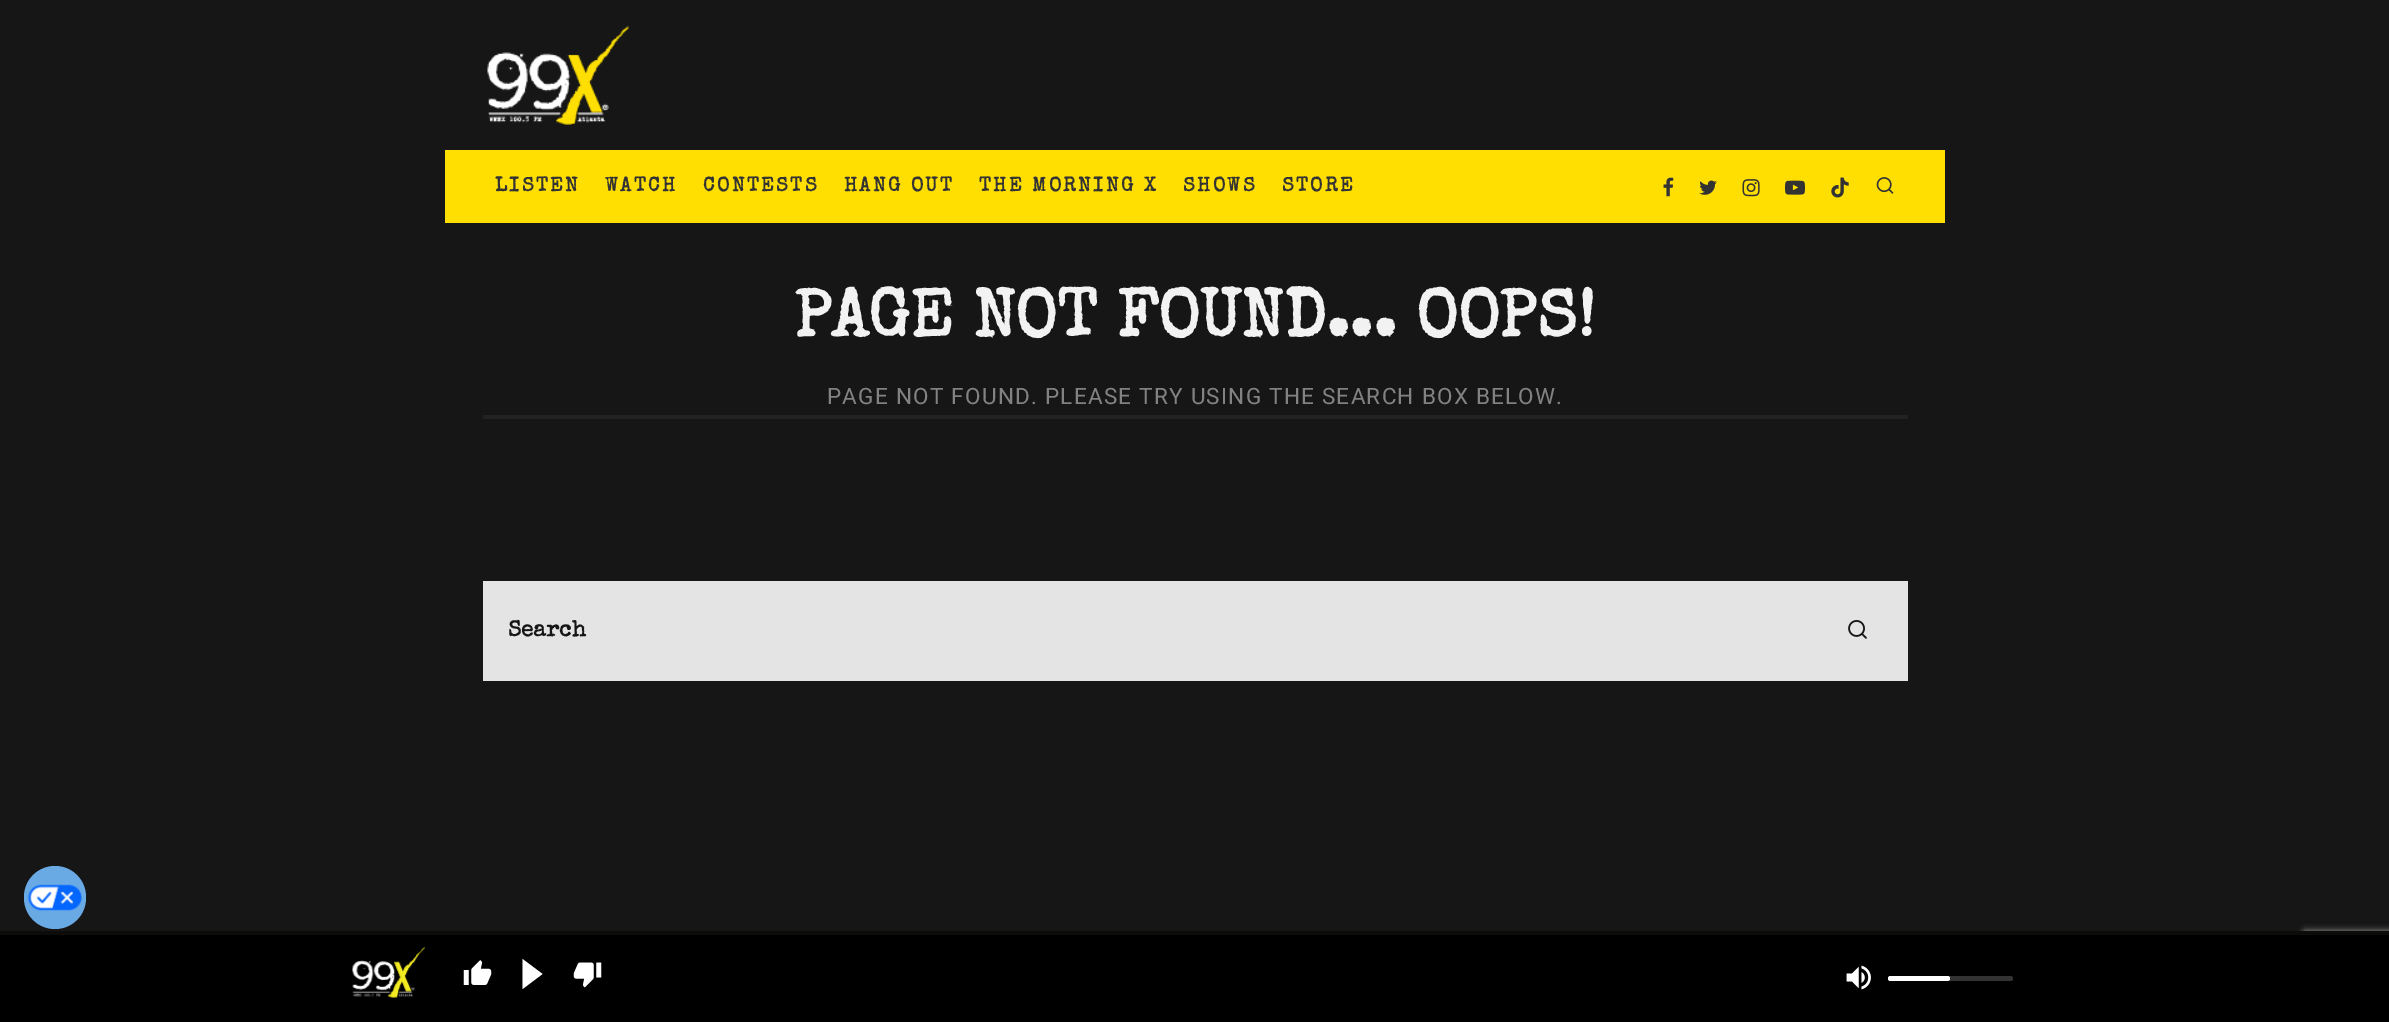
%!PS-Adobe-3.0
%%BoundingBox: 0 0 2389 1022
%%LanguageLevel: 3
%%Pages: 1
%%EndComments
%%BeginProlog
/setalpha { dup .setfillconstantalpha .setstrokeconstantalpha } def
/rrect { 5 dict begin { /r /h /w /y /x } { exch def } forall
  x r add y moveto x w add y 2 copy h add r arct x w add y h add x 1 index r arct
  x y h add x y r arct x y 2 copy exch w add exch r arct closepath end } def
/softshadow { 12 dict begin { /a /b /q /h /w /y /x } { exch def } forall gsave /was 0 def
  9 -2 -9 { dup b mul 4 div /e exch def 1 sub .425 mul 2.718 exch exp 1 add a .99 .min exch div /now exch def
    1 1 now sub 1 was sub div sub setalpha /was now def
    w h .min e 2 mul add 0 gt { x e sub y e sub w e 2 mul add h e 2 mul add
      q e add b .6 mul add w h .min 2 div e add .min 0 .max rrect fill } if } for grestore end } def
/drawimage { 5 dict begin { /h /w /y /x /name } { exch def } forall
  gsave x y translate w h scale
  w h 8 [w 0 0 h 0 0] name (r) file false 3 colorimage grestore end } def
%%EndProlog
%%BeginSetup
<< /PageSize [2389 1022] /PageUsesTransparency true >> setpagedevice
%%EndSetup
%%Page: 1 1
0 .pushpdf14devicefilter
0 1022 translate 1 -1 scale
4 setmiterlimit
0.086 setgray
0 0 2389 1022 rectfill
(images/1.raw) 487 26 142 99 drawimage
1 0.875 0.004 setrgbcolor
445 150 1500 73 rectfill
(images/2.raw) 1663 177 11 20 drawimage
(images/3.raw) 1699 180 18 15 drawimage
(images/4.raw) 1742 179 18 18 drawimage
(images/5.raw) 1785 180 20 15 drawimage
(images/6.raw) 1831 177 18 21 drawimage
(images/7.raw) 1876 177 18 17 drawimage
0.133 setgray
483 415 1425 4 rectfill
0.894 setgray
483 581 1425 100 rectfill
(images/8.raw) 1848 620 19 19 drawimage
0.502 setgray
2303 930 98 75 2.5 3 1 softshadow
0.047 0.047 0.043 setrgbcolor
0 931 2389 4 rectfill
0.416 0.667 0.894 setrgbcolor
24 866 62 63 31 rrect fill
(images/9.raw) 27 884 55 27 drawimage
0 setgray
0 935 2389 87 rectfill
(images/10.raw) 352 947 73 51 drawimage
(images/11.raw) 463 960 29 25 drawimage
1 setgray
newpath 522.5 959 moveto 522.5 989 lineto 542.5 974 lineto closepath fill
(images/12.raw) 573 962 29 26 drawimage
(images/13.raw) 1846 965 25 25 drawimage
0.2 setgray
1888 976 125 5 2.5 rrect fill
1 setgray
1888 976 62 5 2.5 rrect fill
/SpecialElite-Bold [20 0 0 -20 0 0] selectfont
0.2 setgray
495 191 moveto 2.4 0 (LISTEN) ashow
605 191 moveto 2.4 0 (WATCH) ashow
703 191 moveto 2.4 0 (CONTESTS) ashow
844 191 moveto 2.4 0 (HANG OUT) ashow
979 191 moveto 2.4 0 (THE MORNING X) ashow
1183 191 moveto 2.4 0 (SHOWS) ashow
1282 191 moveto 2.4 0 (STORE) ashow
/SpecialElite-Bold [67.5 0 0 -67.5 0 0] selectfont
0.949 setgray
794 336 moveto (PAGE NOT FOUND... OOPS!) show
/Roboto-Regular [22.5 0 0 -22.5 0 0] selectfont
0.51 setgray
827 404 moveto 1.25 0 (PAGE NOT FOUND. PLEASE TRY USING THE SEARCH BOX BELOW.) ashow
/SpecialElite-Bold [22.5 0 0 -22.5 0 0] selectfont
0.086 setgray
508 636 moveto (Search) show
.poppdf14devicefilter showpage
%%EOF
